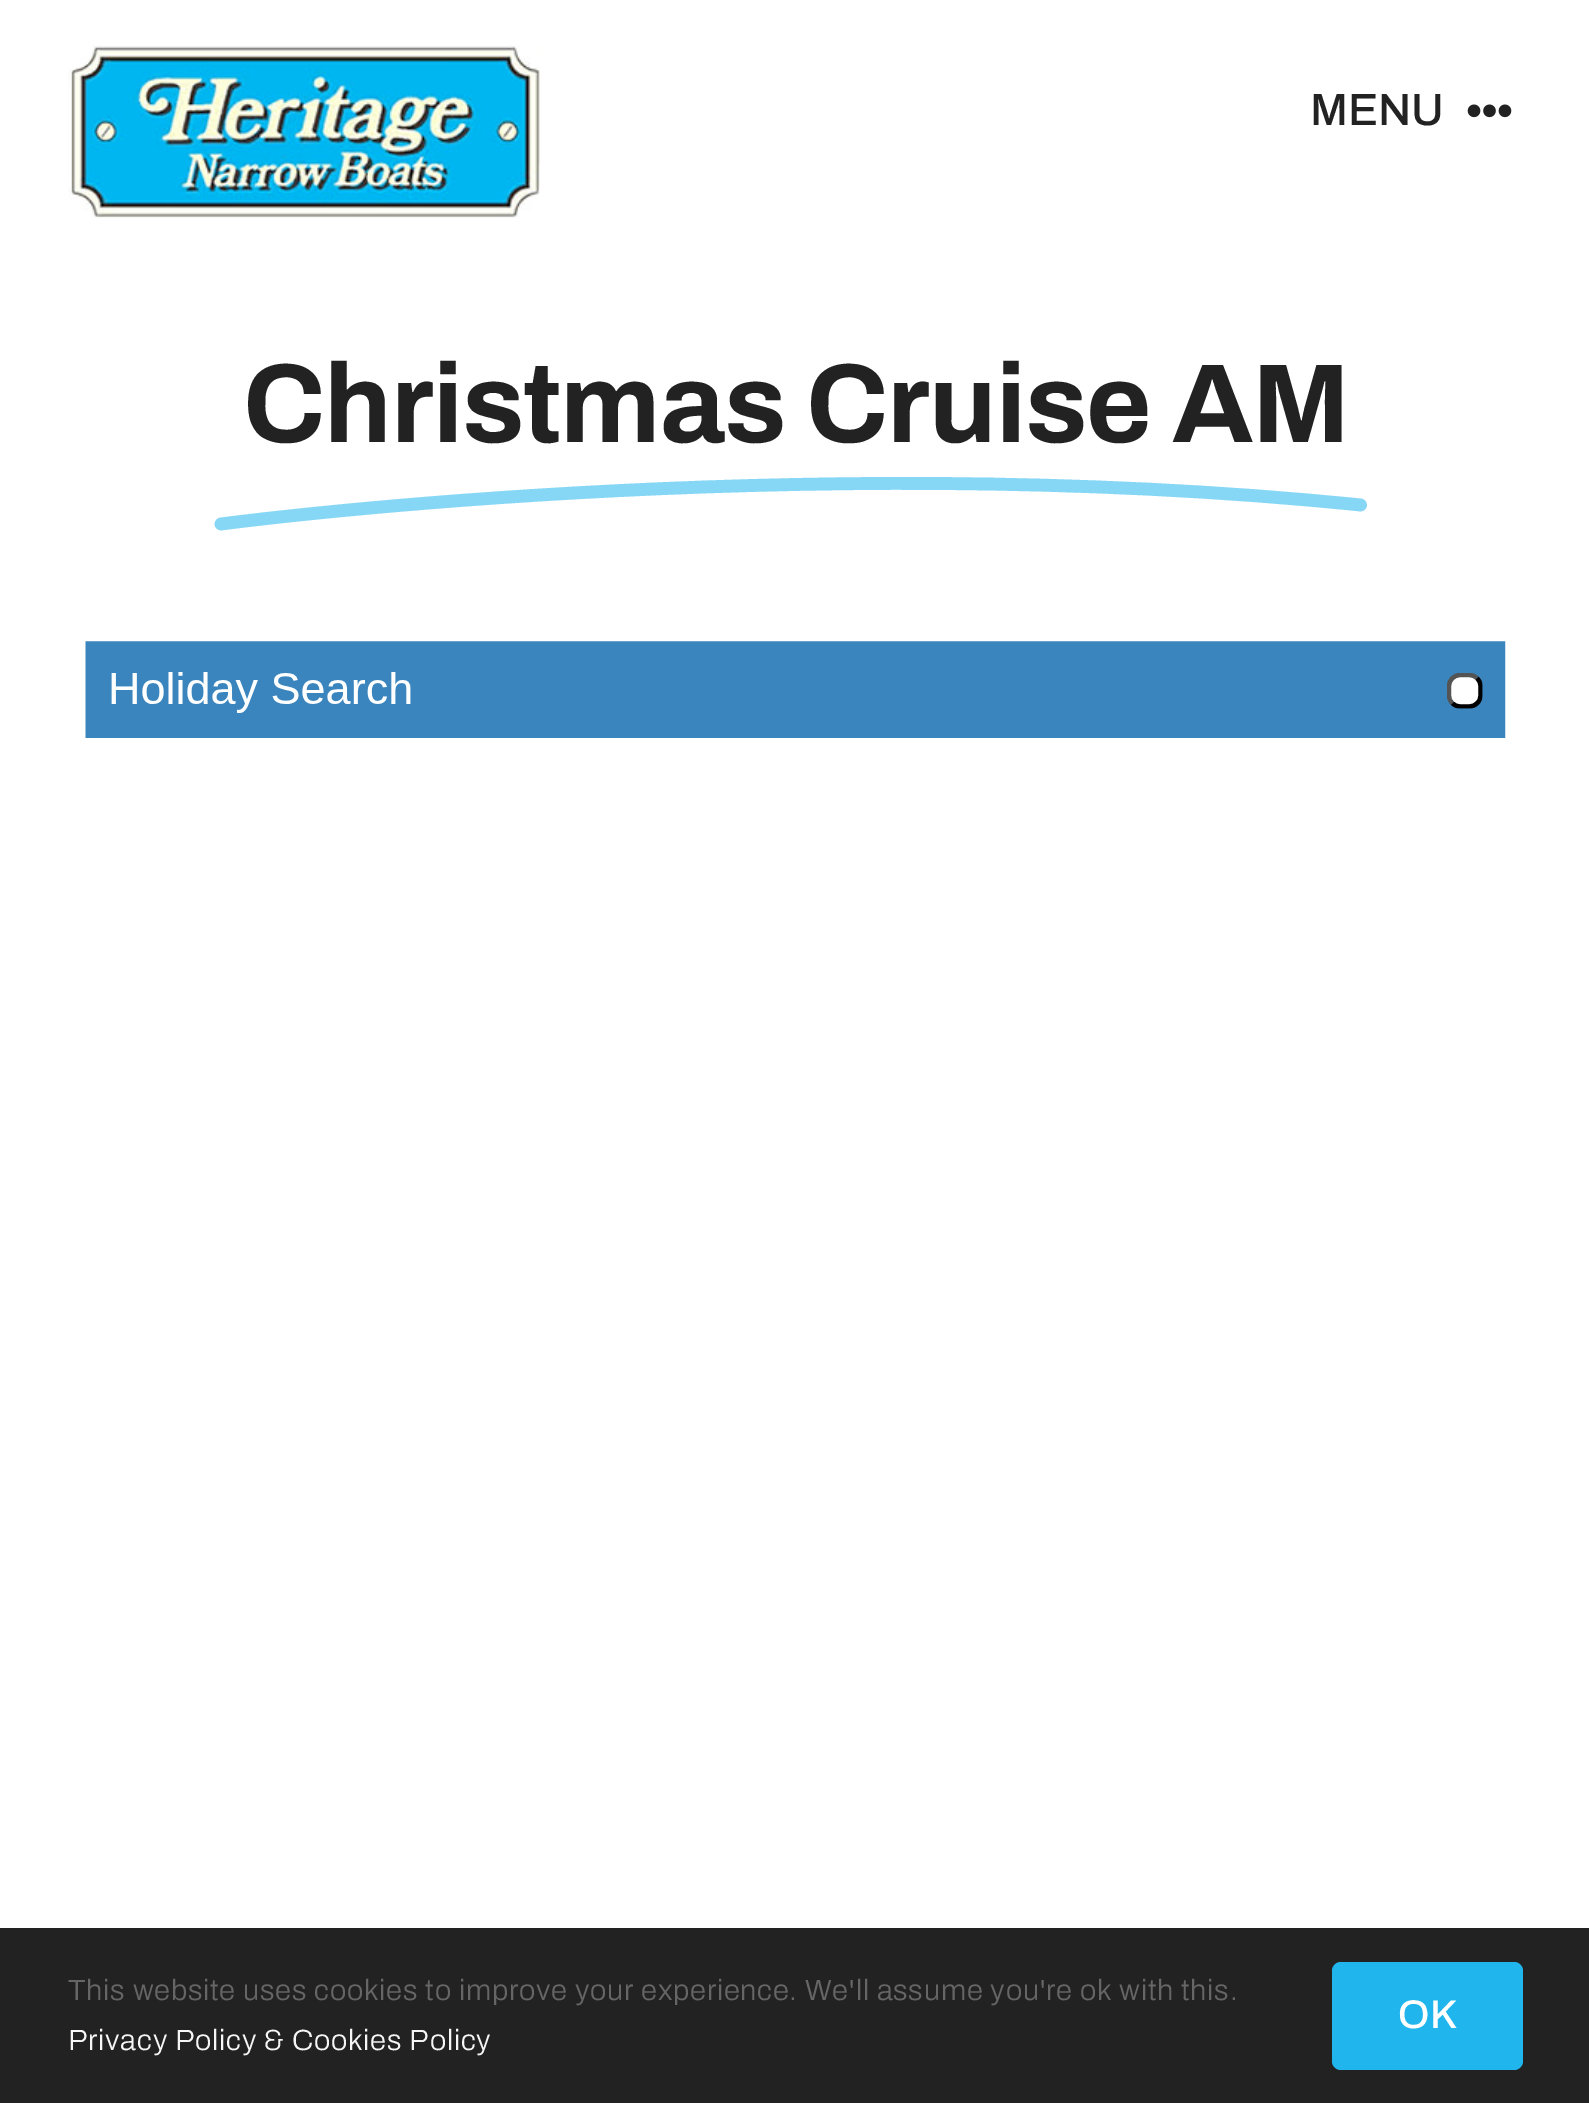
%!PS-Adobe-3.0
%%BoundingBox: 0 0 1589 2103
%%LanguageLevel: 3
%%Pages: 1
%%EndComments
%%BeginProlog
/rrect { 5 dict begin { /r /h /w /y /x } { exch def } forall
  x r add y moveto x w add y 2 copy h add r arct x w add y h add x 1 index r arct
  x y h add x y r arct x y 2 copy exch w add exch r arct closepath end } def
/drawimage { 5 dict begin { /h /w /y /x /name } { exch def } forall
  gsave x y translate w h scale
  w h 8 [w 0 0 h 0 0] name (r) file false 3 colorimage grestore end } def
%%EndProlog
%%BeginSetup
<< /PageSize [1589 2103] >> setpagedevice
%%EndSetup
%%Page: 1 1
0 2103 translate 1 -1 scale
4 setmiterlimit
1 setgray
0 0 1589 2103 rectfill
(images/1.raw) 68 45 472 173 drawimage
(images/2.raw) 1467 104 45 14 drawimage
0.522 0.843 0.961 setrgbcolor
12.7 setlinewidth
1 setlinecap
1 setlinejoin
newpath 221 524 moveto 221 524 793.5 447 1360.5 505 curveto stroke
(images/3.raw) 85 641 1421 97 drawimage
0.133 setgray
0 1928 1589 175 rectfill
0.125 0.71 0.929 setrgbcolor
1332 1962 191 108 9 rrect fill
/Archivo-Medium [45 0 0 -45 0 0] selectfont
0.133 setgray
1310 125 moveto (MENU) show
/Archivo-Bold [112.5 0 0 -112.5 0 0] selectfont
243 442 moveto -1.1 0 (Christmas Cruise AM) ashow
/Archivo-Light [29.25 0 0 -29.25 0 0] selectfont
0.4 setgray
68 2000 moveto 0.8 0 (This website uses cookies to improve your experience. We'll assume you're ok with this.) ashow
0.965 setgray
68 2050 moveto 0.8 0 (Privacy Policy & Cookies Policy) ashow
/Archivo-Medium [40 0 0 -40 0 0] selectfont
1 setgray
1398 2028 moveto 1 0 (OK) ashow
showpage
%%EOF
